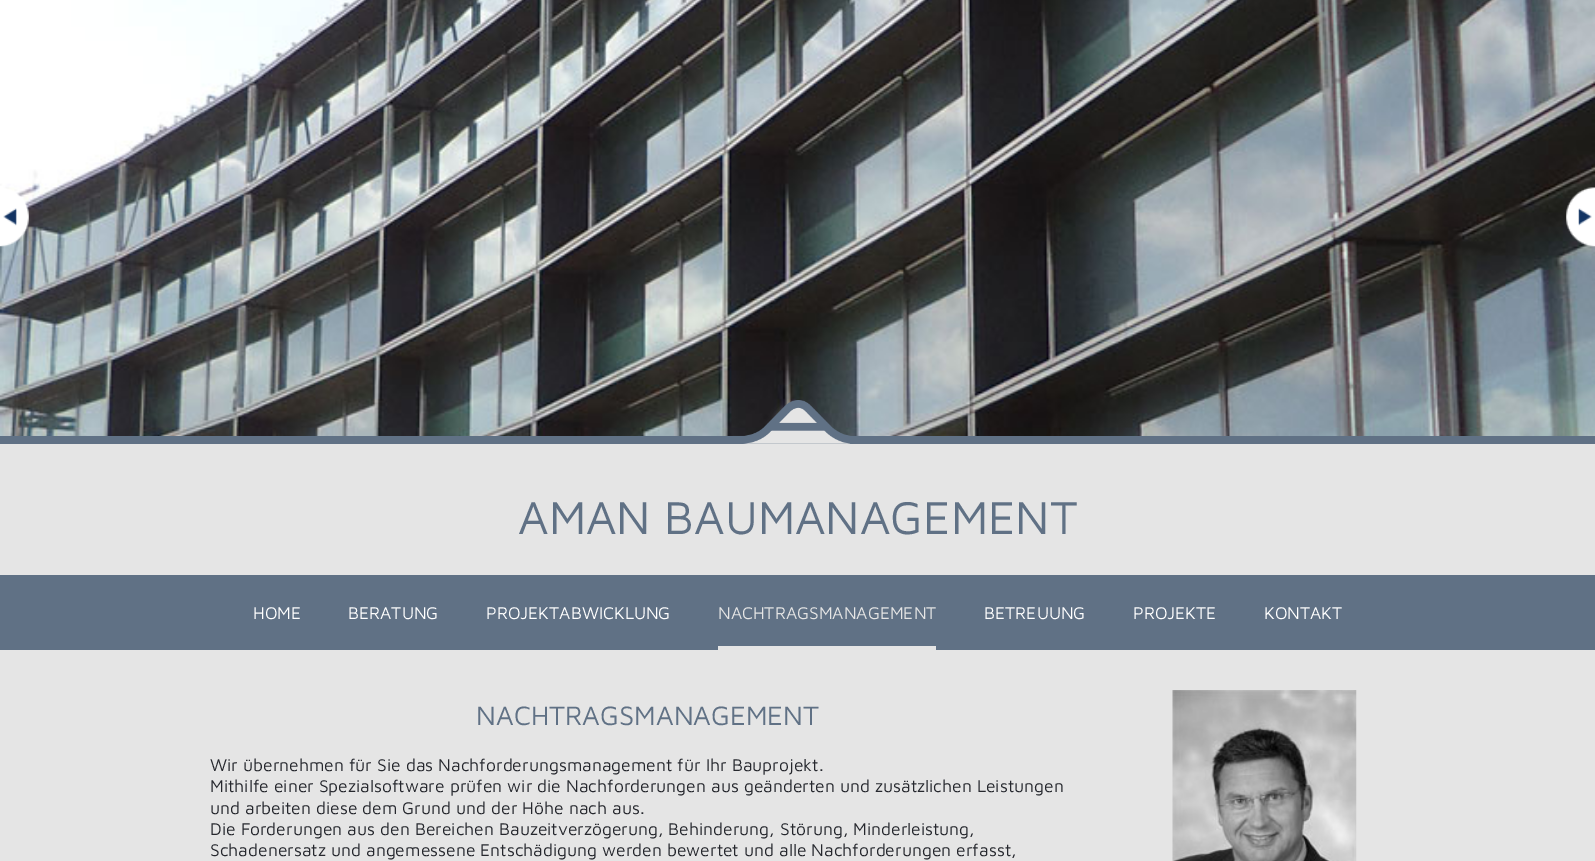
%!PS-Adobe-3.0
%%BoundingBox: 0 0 1595 861
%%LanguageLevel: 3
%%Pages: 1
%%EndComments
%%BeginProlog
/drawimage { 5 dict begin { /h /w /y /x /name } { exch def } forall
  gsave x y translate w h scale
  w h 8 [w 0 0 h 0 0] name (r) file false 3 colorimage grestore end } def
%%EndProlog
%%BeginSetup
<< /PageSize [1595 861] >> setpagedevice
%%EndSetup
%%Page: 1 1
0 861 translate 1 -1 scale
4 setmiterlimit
0.898 setgray
0 0 1595 861 rectfill
(images/1.raw) 0 0 1595 436 drawimage
(images/2.raw) 0 188 29 59 drawimage
(images/3.raw) 1566 187 29 60 drawimage
0.376 0.443 0.522 setrgbcolor
0 436 1595 8 rectfill
(images/4.raw) 733 400 127 44 drawimage
0 575 1595 75 rectfill
0.898 setgray
718 646 218 4 rectfill
(images/5.raw) 1172 690 185 171 drawimage
/MavenPro-Regular [47.5 0 0 -47.5 0 0] selectfont
0.376 0.443 0.522 setrgbcolor
518 534 moveto (AMAN BAUMANAGEMENT) show
/MavenPro-Regular [17.5 0 0 -17.5 0 0] selectfont
1 setgray
253 619 moveto (HOME) show
348 619 moveto (BERATUNG) show
486 619 moveto (PROJEKTABWICKLUNG) show
0.898 setgray
718 619 moveto (NACHTRAGSMANAGEMENT) show
1 setgray
984 619 moveto (BETREUUNG) show
1133 619 moveto (PROJEKTE) show
1264 619 moveto (KONTAKT) show
/MavenPro-Regular [27.5 0 0 -27.5 0 0] selectfont
0.376 0.443 0.522 setrgbcolor
476 725 moveto (NACHTRAGSMANAGEMENT) show
/MavenPro-Regular [17.5 0 0 -17.5 0 0] selectfont
0.149 0.157 0.18 setrgbcolor
210 771 moveto (Wir übernehmen für Sie das Nachforderungsmanagement für Ihr Bauprojekt.) show
210 792 moveto (Mithilfe einer Spezialsoftware prüfen wir die Nachforderungen aus geänderten und zusätzlichen Leistungen) show
210 814 moveto (und arbeiten diese dem Grund und der Höhe nach aus.) show
210 835 moveto (Die Forderungen aus den Bereichen Bauzeitverzögerung, Behinderung, Störung, Minderleistung,) show
210 856 moveto (Schadenersatz und angemessene Entschädigung werden bewertet und alle Nachforderungen erfasst,) show
showpage
%%EOF
